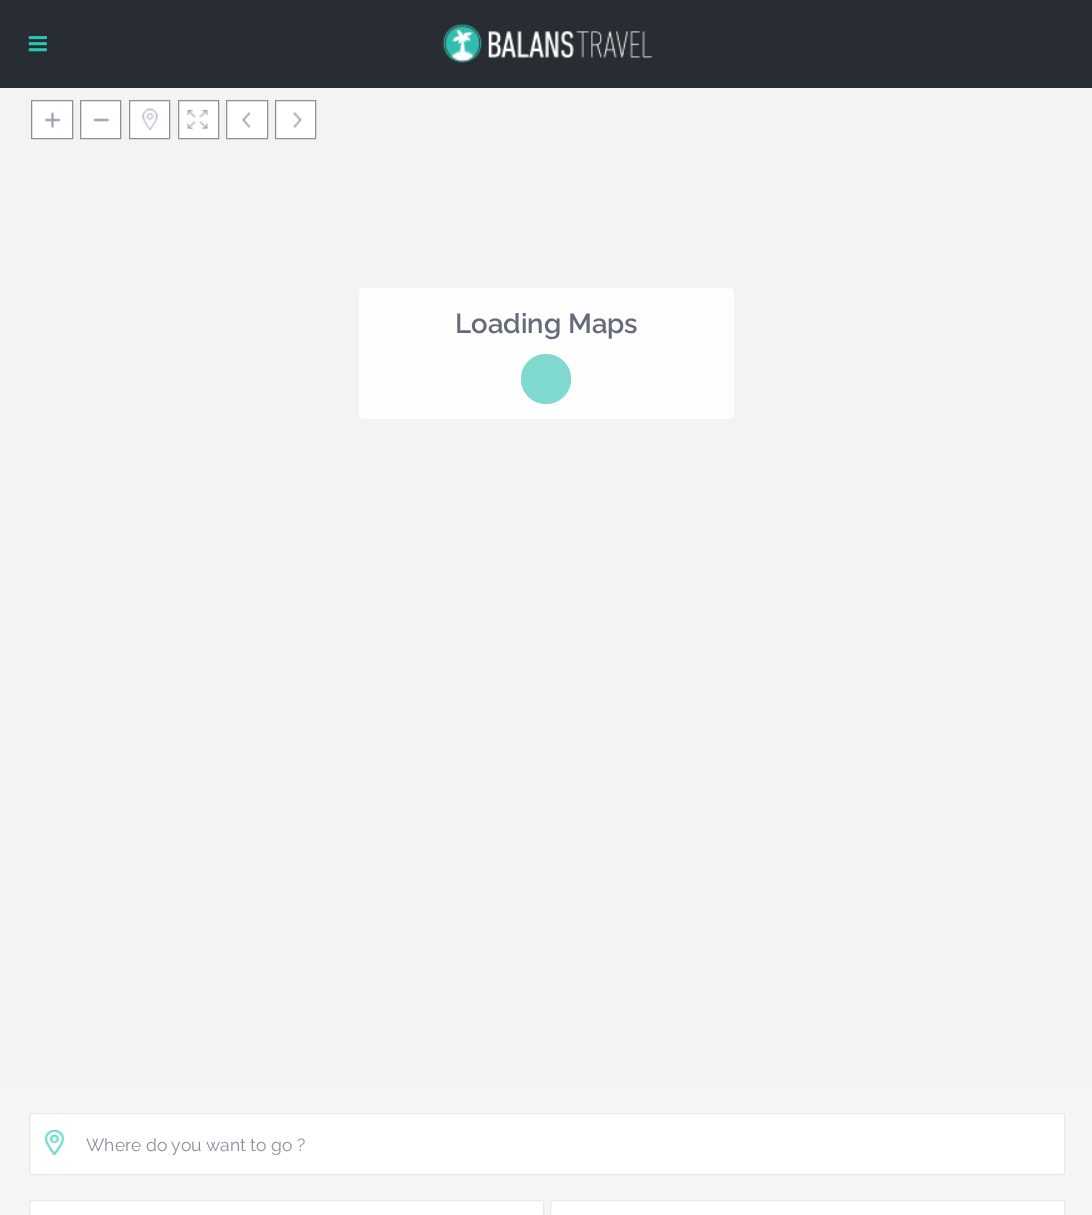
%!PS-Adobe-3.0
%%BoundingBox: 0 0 1092 1215
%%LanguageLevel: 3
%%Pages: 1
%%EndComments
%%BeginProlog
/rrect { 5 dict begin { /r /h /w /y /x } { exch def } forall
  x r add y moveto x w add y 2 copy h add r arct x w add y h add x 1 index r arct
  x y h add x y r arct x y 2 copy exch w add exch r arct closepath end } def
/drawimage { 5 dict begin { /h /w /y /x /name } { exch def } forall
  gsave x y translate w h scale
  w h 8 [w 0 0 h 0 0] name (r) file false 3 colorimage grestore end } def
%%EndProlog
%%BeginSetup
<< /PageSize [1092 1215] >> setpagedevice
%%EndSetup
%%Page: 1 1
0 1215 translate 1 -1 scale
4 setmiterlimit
0.953 setgray
0 0 1092 1215 rectfill
0.157 0.176 0.2 setrgbcolor
0 0 1092 88 rectfill
(images/1.raw) 28 36 19 16 drawimage
(images/2.raw) 442 23 211 40 drawimage
1 setgray
32 101 40 37 rectfill
(images/3.raw) 44 112 17 16 drawimage
0.541 0.561 0.604 setrgbcolor
31.5 100.5 41 38 rectstroke
1 setgray
81 101 39 37 rectfill
(images/4.raw) 93 118 16 4 drawimage
0.541 0.561 0.604 setrgbcolor
80.5 100.5 40 38 rectstroke
1 setgray
130 101 39 37 rectfill
(images/5.raw) 142 108 16 23 drawimage
0.541 0.561 0.604 setrgbcolor
129.5 100.5 40 38 rectstroke
1 setgray
179 101 39 37 rectfill
(images/6.raw) 187 109 21 20 drawimage
0.541 0.561 0.604 setrgbcolor
178.5 100.5 40 38 rectstroke
1 setgray
227 101 40 37 rectfill
(images/7.raw) 242 112 9 16 drawimage
0.541 0.561 0.604 setrgbcolor
226.5 100.5 41 38 rectstroke
1 setgray
276 101 39 37 rectfill
(images/8.raw) 293 112 9 16 drawimage
0.541 0.561 0.604 setrgbcolor
275.5 100.5 40 38 rectstroke
0.996 setgray
359 288 375 131 5 rrect fill
0.502 0.851 0.808 setrgbcolor
newpath 546 379 25 0 360 arc closepath fill
0.965 setgray
0 1088 1092 127 rectfill
1 setgray
29.5 1113.5 1035 61 2 rrect gsave fill grestore
0.906 0.914 0.937 setrgbcolor
stroke
(images/9.raw) 44 1130 20 25 drawimage
1 setgray
29.5 1200.5 514 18 2 rrect gsave fill grestore
0.906 0.914 0.937 setrgbcolor
stroke
1 setgray
550.5 1200.5 514 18 2 rrect gsave fill grestore
0.906 0.914 0.937 setrgbcolor
stroke
/Raleway-SemiBold [27.5 0 0 -27.5 0 0] selectfont
0.396 0.42 0.482 setrgbcolor
455 333 moveto (Loading Maps) show
/Raleway-Regular [17.5 0 0 -17.5 0 0] selectfont
0.541 0.561 0.604 setrgbcolor
86 1151 moveto (Where do you want to go ?) show
showpage
%%EOF
